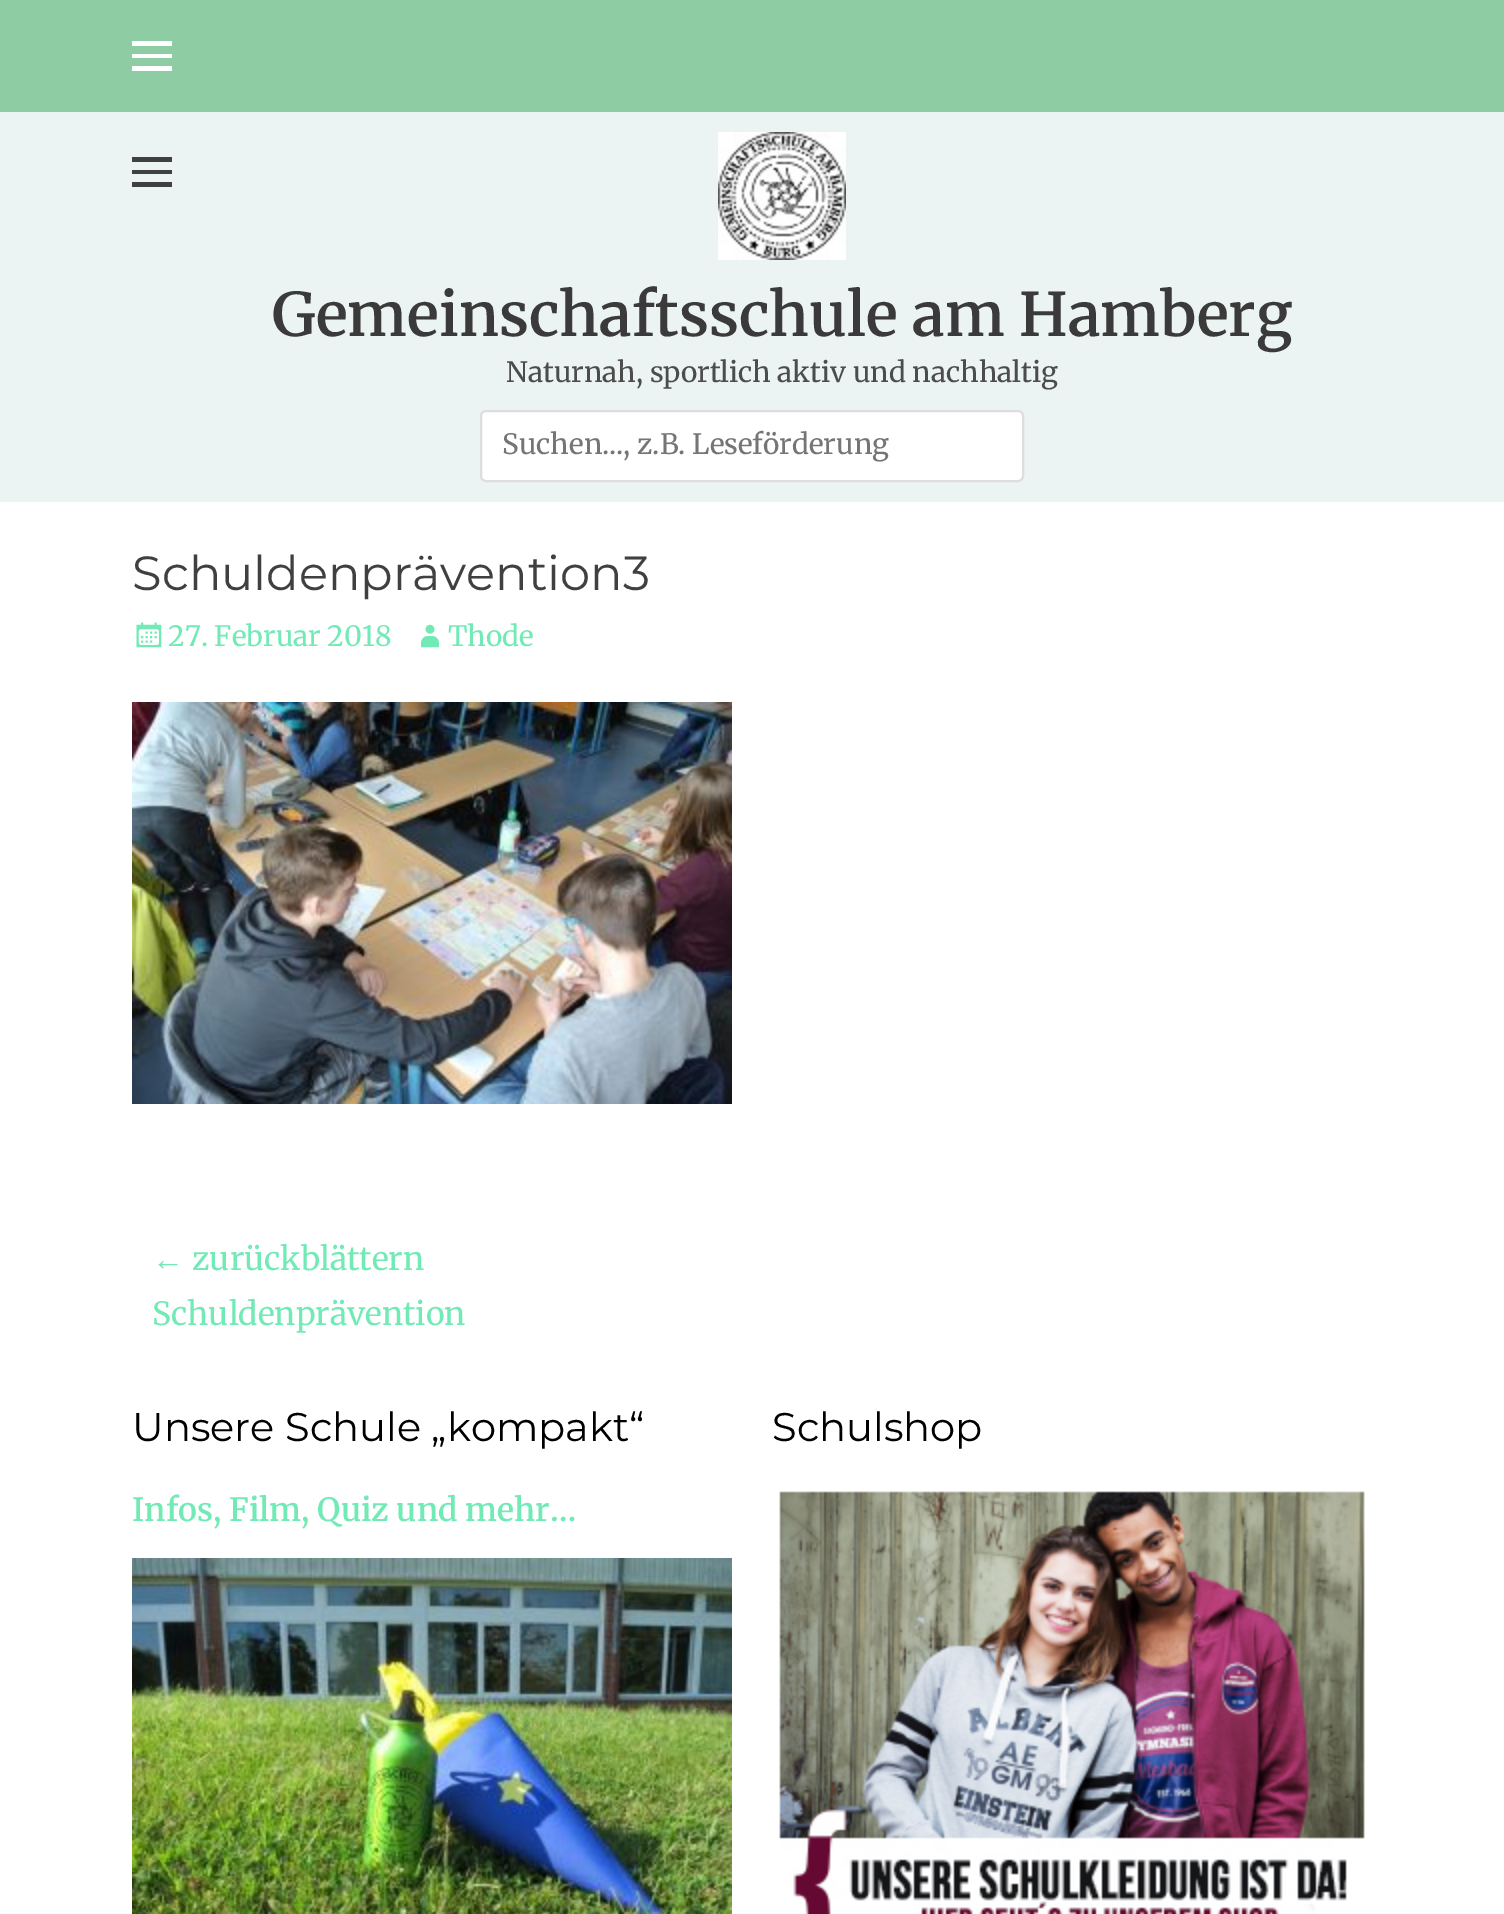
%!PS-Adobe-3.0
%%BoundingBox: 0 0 1504 1914
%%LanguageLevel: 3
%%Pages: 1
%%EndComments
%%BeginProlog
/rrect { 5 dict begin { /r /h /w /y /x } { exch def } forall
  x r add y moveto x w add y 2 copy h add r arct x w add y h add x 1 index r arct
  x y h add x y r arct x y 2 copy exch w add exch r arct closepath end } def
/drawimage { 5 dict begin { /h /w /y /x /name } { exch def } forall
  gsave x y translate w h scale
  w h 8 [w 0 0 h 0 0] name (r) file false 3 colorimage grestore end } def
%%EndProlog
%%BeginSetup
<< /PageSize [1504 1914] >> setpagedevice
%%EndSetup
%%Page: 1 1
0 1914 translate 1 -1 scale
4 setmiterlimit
0.557 0.8 0.639 setrgbcolor
0 0 1504 1914 rectfill
1 setgray
newpath 132 71 moveto 132 66 lineto 172 66 lineto 172 71 lineto closepath 132 41 moveto 172 41 lineto 172 46 lineto 132 46 lineto closepath 132 58 moveto 132 54 lineto 172 54 lineto 172 58 lineto closepath fill
0.922 0.957 0.949 setrgbcolor
0 112 1504 390 rectfill
0.251 setgray
newpath 132 187 moveto 132 182 lineto 172 182 lineto 172 187 lineto closepath 132 157 moveto 172 157 lineto 172 162 lineto 132 162 lineto closepath 132 174 moveto 132 170 lineto 172 170 lineto 172 174 lineto closepath fill
(images/1.raw) 718 132 128 128 drawimage
1 setgray
481 411 542 70 5 rrect gsave fill grestore
0.867 setgray
2 setlinewidth
stroke
1 setgray
0 502 1504 1412 rectfill
(images/2.raw) 136 622 26 26 drawimage
(images/3.raw) 421 624 18 24 drawimage
(images/4.raw) 132 702 600 402 drawimage
(images/5.raw) 132 1558 600 356 drawimage
(images/6.raw) 779 1491 586 423 drawimage
/Merriweather-SemiBold [60 0 0 -60 0 0] selectfont
0.227 setgray
272 336 moveto (Gemeinschaftsschule am Hamberg) show
/Merriweather-Regular [28 0 0 -28 0 0] selectfont
0.298 setgray
506 382 moveto (Naturnah, sportlich aktiv und nachhaltig) show
0.459 setgray
502 454 moveto (Suchen..., z.B. Leseförderung) show
/Montserrat-Regular [48 0 0 -48 0 0] selectfont
0.251 setgray
132 590 moveto (Schuldenprävention3) show
/Merriweather-Regular [28 0 0 -28 0 0] selectfont
0.447 0.918 0.714 setrgbcolor
168 646 moveto (27. Februar 2018) show
448 646 moveto (Thode) show
/LiberationSerif-Regular [32 0 0 -32 0 0] selectfont
152 1270 moveto (←) show
/Merriweather-Regular [32 0 0 -32 0 0] selectfont
192 1270 moveto (zurückblättern) show
152 1325 moveto (Schuldenprävention) show
/Montserrat-Regular [40 0 0 -40 0 0] selectfont
0 setgray
132 1441 moveto (Unsere Schule „kompakt“) show
/Merriweather-SemiBold [32 0 0 -32 0 0] selectfont
0.447 0.918 0.714 setrgbcolor
132 1521 moveto (Infos, Film, Quiz und mehr…) show
/Montserrat-Regular [40 0 0 -40 0 0] selectfont
0 setgray
772 1441 moveto (Schulshop) show
showpage
%%EOF
